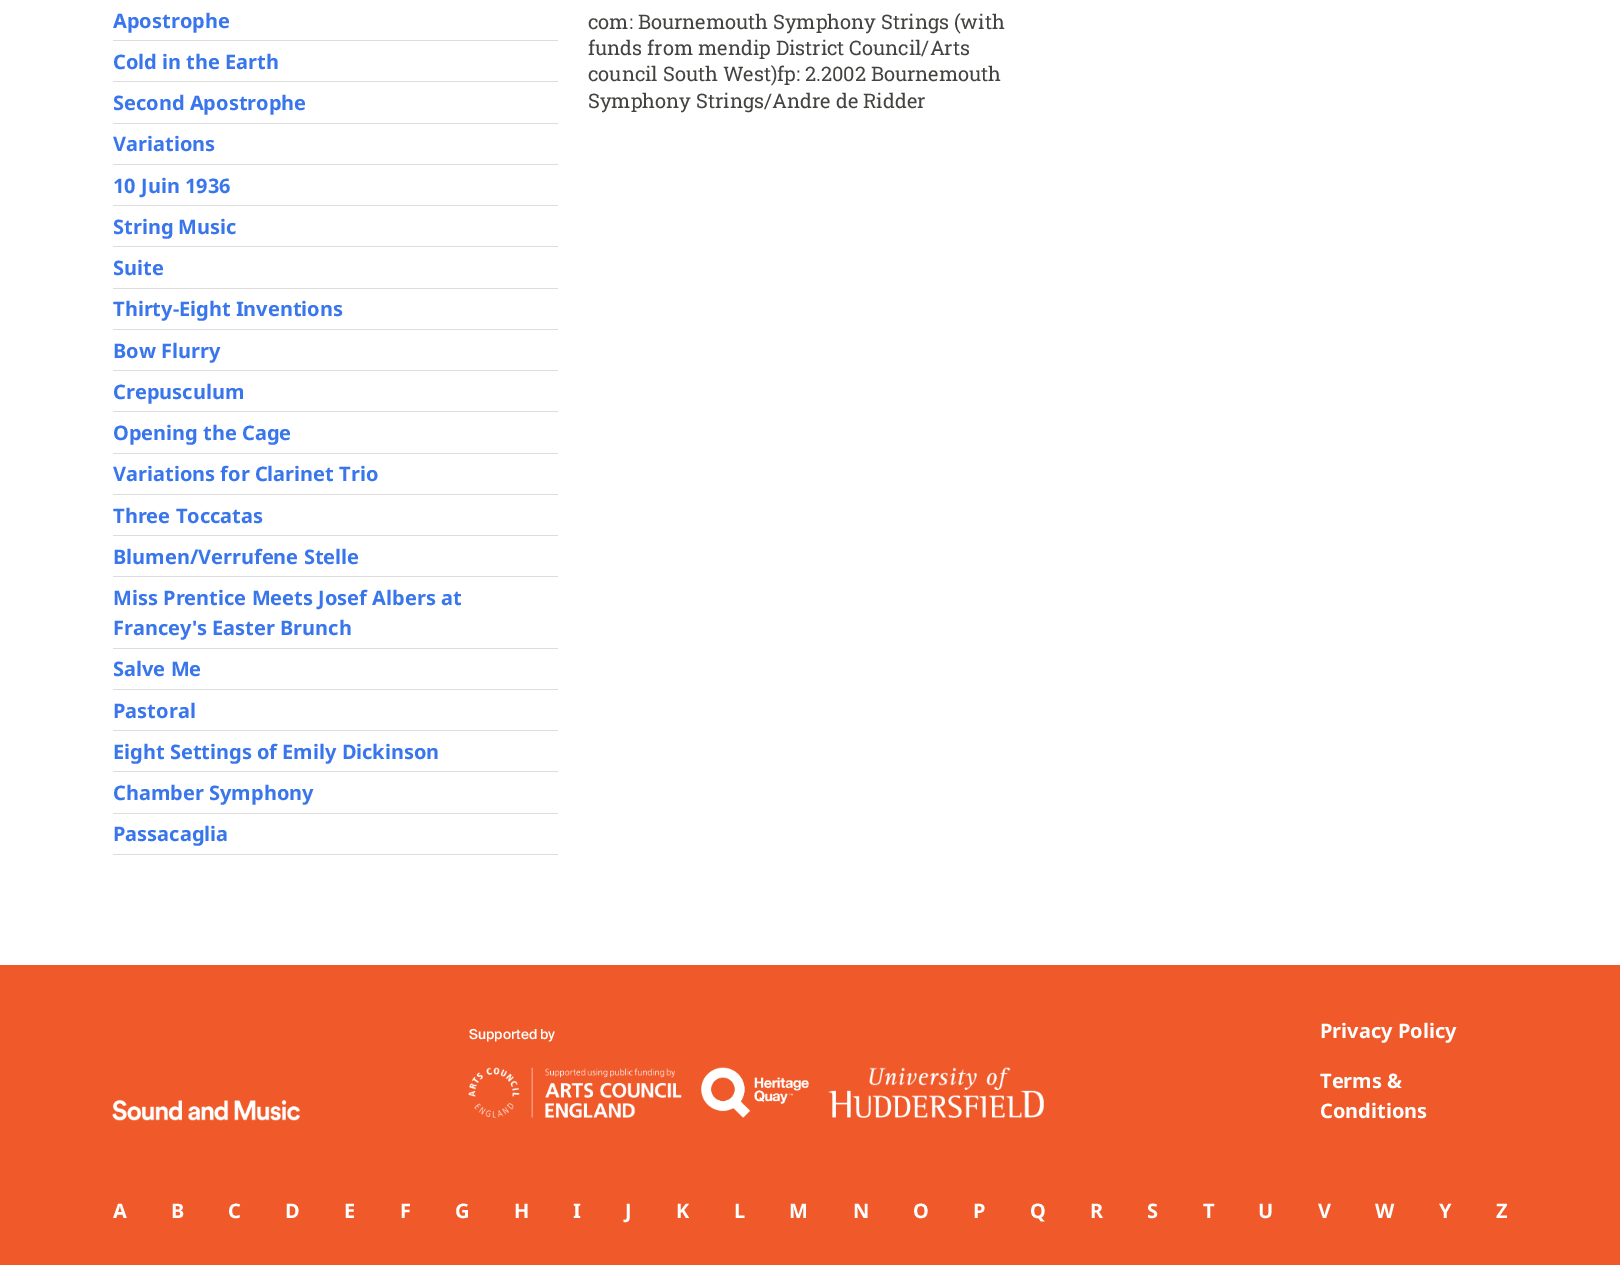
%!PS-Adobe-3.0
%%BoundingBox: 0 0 1620 1265
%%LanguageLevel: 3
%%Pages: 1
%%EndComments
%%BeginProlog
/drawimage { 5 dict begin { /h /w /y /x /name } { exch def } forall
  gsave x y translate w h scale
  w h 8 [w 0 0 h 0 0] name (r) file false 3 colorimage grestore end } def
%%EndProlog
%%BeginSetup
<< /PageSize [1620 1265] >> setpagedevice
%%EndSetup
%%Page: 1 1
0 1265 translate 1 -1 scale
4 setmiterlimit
1 setgray
0 0 1620 1265 rectfill
0.867 setgray
113 40 445 1 rectfill
113 81 445 1 rectfill
113 123 445 1 rectfill
113 164 445 1 rectfill
113 205 445 1 rectfill
113 246 445 1 rectfill
113 288 445 1 rectfill
113 329 445 1 rectfill
113 370 445 1 rectfill
113 411 445 1 rectfill
113 453 445 1 rectfill
113 494 445 1 rectfill
113 535 445 1 rectfill
113 576 445 1 rectfill
113 648 445 1 rectfill
113 689 445 1 rectfill
113 730 445 1 rectfill
113 771 445 1 rectfill
113 813 445 1 rectfill
113 854 445 1 rectfill
0.941 0.349 0.161 setrgbcolor
0 965 1620 300 rectfill
(images/1.raw) 468 1067 214 51 drawimage
(images/2.raw) 701 1067 108 51 drawimage
(images/3.raw) 828 1067 216 51 drawimage
(images/4.raw) 112 1100 188 21 drawimage
/NotoSans-Bold [20 0 0 -20 0 0] selectfont
0.227 0.463 0.922 setrgbcolor
113 28 moveto (Apostrophe) show
113 69 moveto (Cold in the Earth) show
113 110 moveto (Second Apostrophe) show
113 151 moveto (Variations) show
113 193 moveto (10 Juin 1936) show
113 234 moveto (String Music) show
113 275 moveto (Suite) show
113 316 moveto (Thirty-Eight Inventions) show
113 358 moveto (Bow Flurry) show
113 399 moveto (Crepusculum) show
113 440 moveto (Opening the Cage) show
113 481 moveto (Variations for Clarinet Trio) show
113 523 moveto (Three Toccatas) show
113 564 moveto (Blumen/Verrufene Stelle) show
113 605 moveto (Miss Prentice Meets Josef Albers at) show
113 635 moveto (Francey's Easter Brunch) show
113 676 moveto (Salve Me) show
113 718 moveto (Pastoral) show
113 759 moveto (Eight Settings of Emily Dickinson) show
113 800 moveto (Chamber Symphony) show
113 841 moveto (Passacaglia) show
/RobotoSlab-Regular [20 0 0 -20 0 0] selectfont
0.267 0.263 0.255 setrgbcolor
588 29 moveto (com: Bournemouth Symphony Strings \(with) show
588 55 moveto (funds from mendip District Council/Arts) show
588 81 moveto (council South West\)fp: 2.2002 Bournemouth) show
588 108 moveto (Symphony Strings/Andre de Ridder) show
/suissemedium-Medium [13.75 0 0 -13.75 0 0] selectfont
1 setgray
469 1039 moveto (Supported by) show
/NotoSans-Bold [20 0 0 -20 0 0] selectfont
1320 1038 moveto (Privacy Policy) show
1320 1088 moveto (Terms &) show
1320 1118 moveto (Conditions) show
113 1218 moveto (A) show
171 1218 moveto (B) show
228 1218 moveto (C) show
285 1218 moveto (D) show
344 1218 moveto (E) show
400 1218 moveto (F) show
455 1218 moveto (G) show
514 1218 moveto (H) show
573 1218 moveto (I) show
625 1218 moveto (J) show
676 1218 moveto (K) show
734 1218 moveto (L) show
789 1218 moveto (M) show
853 1218 moveto (N) show
913 1218 moveto (O) show
973 1218 moveto (P) show
1030 1218 moveto (Q) show
1090 1218 moveto (R) show
1147 1218 moveto (S) show
1203 1218 moveto (T) show
1258 1218 moveto (U) show
1318 1218 moveto (V) show
1375 1218 moveto (W) show
1439 1218 moveto (Y) show
1496 1218 moveto (Z) show
showpage
%%EOF
